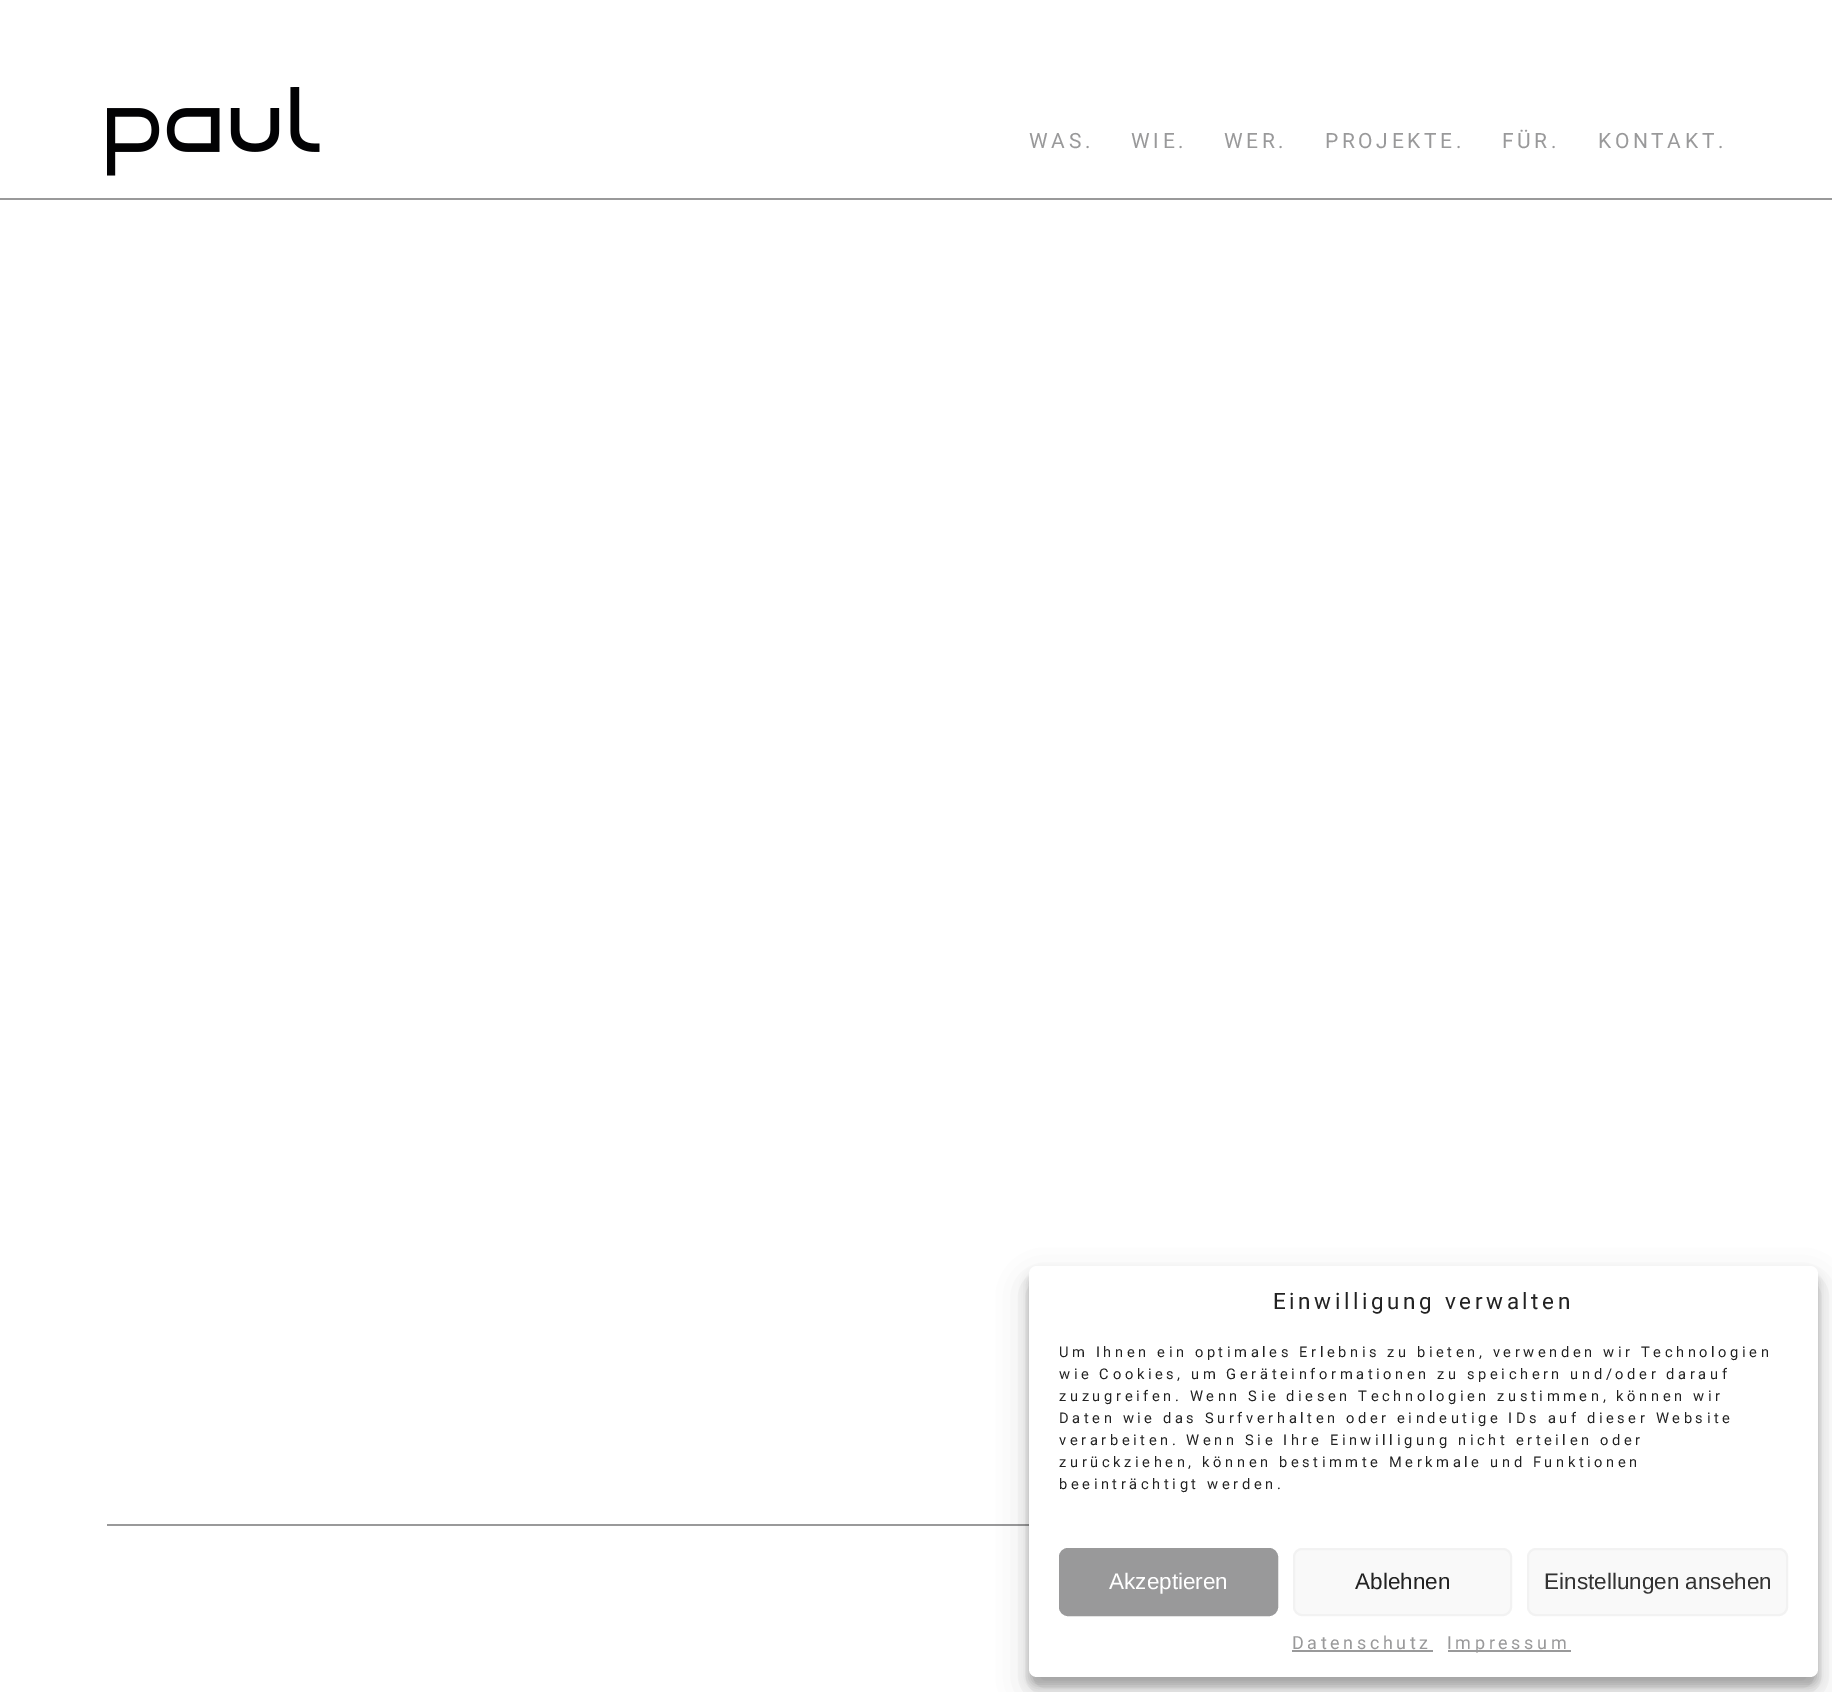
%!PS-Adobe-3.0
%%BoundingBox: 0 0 1832 1692
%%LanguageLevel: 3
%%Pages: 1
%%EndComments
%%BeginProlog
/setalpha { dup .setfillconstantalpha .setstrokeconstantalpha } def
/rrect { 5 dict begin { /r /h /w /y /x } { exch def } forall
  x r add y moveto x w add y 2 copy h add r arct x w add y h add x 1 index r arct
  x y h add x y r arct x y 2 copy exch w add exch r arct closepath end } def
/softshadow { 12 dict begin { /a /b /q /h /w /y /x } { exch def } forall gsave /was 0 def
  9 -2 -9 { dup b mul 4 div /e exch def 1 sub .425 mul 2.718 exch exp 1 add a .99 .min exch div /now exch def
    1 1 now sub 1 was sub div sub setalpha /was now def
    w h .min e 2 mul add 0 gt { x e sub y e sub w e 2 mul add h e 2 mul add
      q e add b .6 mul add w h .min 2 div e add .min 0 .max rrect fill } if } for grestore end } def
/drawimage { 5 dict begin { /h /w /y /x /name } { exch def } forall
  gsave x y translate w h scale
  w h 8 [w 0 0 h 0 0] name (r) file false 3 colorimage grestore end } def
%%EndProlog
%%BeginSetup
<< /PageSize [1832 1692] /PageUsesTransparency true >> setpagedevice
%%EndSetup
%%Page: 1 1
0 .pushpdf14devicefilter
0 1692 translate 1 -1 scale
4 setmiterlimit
1 setgray
0 0 1832 1692 rectfill
0.6 0.6 0.604 setrgbcolor
0 198 1832 2 rectfill
(images/1.raw) 107 87 213 89 drawimage
107 1524 922 2 rectfill
0 setgray
1029 1275 789 411 8 4.5 0.23 softshadow
1029 1281 789 411 8 15 0.19 softshadow
1 setgray
1029 1266 789 411 8 rrect fill
0.6 0.6 0.604 setrgbcolor
1060 1549 217 66 8 rrect gsave fill grestore
2 setlinewidth
stroke
0.976 setgray
1294 1549 217 66 8 rrect gsave fill grestore
0.949 setgray
stroke
0.976 setgray
1528 1549 259 66 8 rrect gsave fill grestore
0.949 setgray
stroke
0.6 0.6 0.604 setrgbcolor
1292 1650 141 2 rectfill
1448 1650 123 2 rectfill
/Roboto-Regular [21 0 0 -21 0 0] selectfont
1029 148 moveto 3.6 0 (WAS.) ashow
1131 148 moveto 3.6 0 (WIE.) ashow
1224 148 moveto 3.6 0 (WER.) ashow
1325 148 moveto 3.6 0 (PROJEKTE.) ashow
1502 148 moveto 3.6 0 (FÜR.) ashow
1598 148 moveto 3.6 0 (KONTAKT.) ashow
/Roboto-Regular [22.5 0 0 -22.5 0 0] selectfont
0.133 setgray
1273 1309 moveto 3.6 0 (Einwilligung verwalten) ashow
/Roboto-Regular [14.7 0 0 -14.7 0 0] selectfont
1059 1357 moveto 3.6 0 (Um Ihnen ein optimales Erlebnis zu bieten, verwenden wir Technologien) ashow
1059 1379 moveto 3.6 0 (wie Cookies, um Geräteinformationen zu speichern und/oder darauf) ashow
1059 1401 moveto 3.6 0 (zuzugreifen. Wenn Sie diesen Technologien zustimmen, können wir) ashow
1059 1423 moveto 3.6 0 (Daten wie das Surfverhalten oder eindeutige IDs auf dieser Website) ashow
1059 1445 moveto 3.6 0 (verarbeiten. Wenn Sie Ihre Einwilligung nicht erteilen oder) ashow
1059 1467 moveto 3.6 0 (zurückziehen, können bestimmte Merkmale und Funktionen) ashow
1059 1489 moveto 3.6 0 (beeinträchtigt werden.) ashow
/LiberationSans-Regular [22.5 0 0 -22.5 0 0] selectfont
1 setgray
1109 1589 moveto (Akzeptieren) show
0.133 setgray
1355 1589 moveto (Ablehnen) show
0.2 setgray
1544 1589 moveto (Einstellungen ansehen) show
/Roboto-Regular [18 0 0 -18 0 0] selectfont
0.6 0.6 0.604 setrgbcolor
1292 1649 moveto 3.6 0 (Datenschutz) ashow
1447 1649 moveto 3.6 0 (Impressum) ashow
.poppdf14devicefilter showpage
%%EOF
